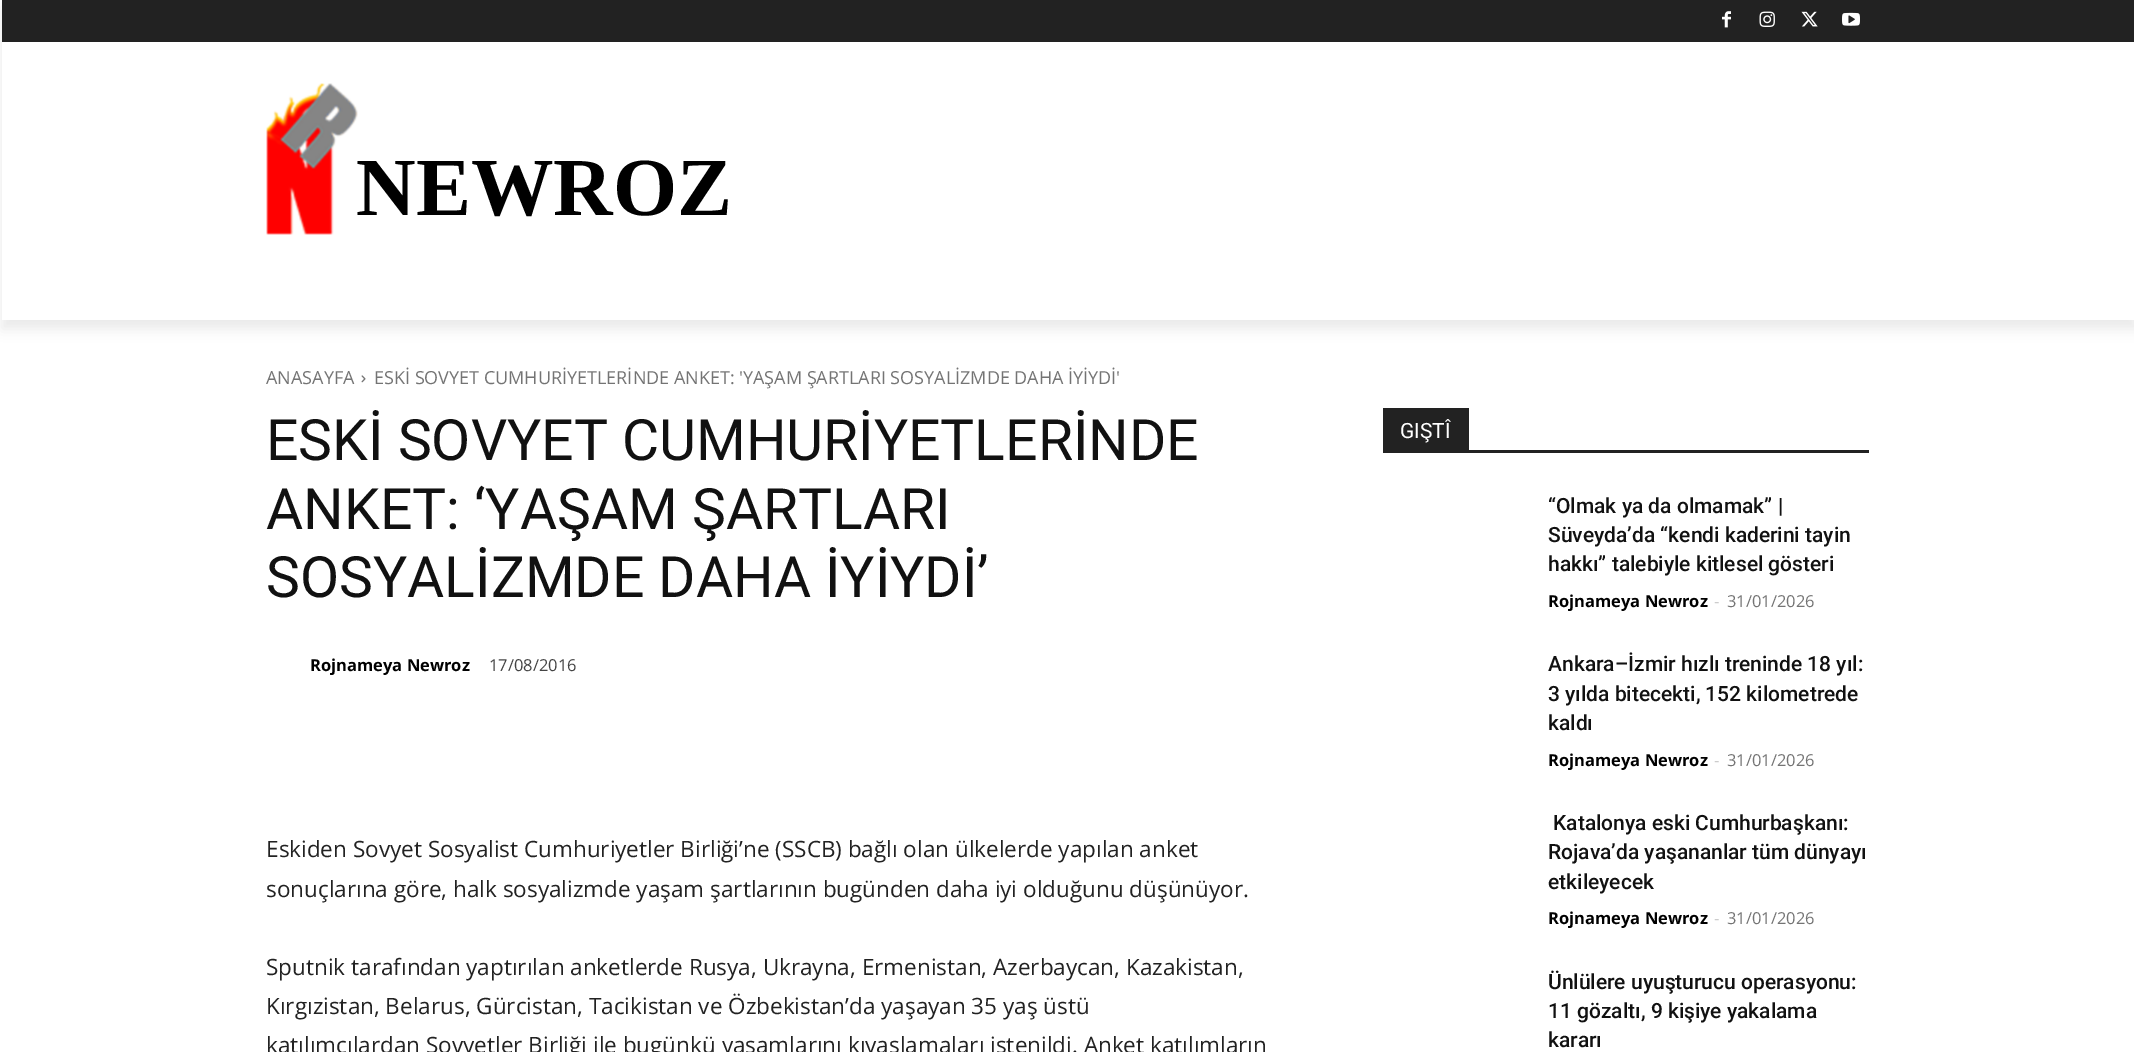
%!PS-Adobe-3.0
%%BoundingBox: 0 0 2134 1052
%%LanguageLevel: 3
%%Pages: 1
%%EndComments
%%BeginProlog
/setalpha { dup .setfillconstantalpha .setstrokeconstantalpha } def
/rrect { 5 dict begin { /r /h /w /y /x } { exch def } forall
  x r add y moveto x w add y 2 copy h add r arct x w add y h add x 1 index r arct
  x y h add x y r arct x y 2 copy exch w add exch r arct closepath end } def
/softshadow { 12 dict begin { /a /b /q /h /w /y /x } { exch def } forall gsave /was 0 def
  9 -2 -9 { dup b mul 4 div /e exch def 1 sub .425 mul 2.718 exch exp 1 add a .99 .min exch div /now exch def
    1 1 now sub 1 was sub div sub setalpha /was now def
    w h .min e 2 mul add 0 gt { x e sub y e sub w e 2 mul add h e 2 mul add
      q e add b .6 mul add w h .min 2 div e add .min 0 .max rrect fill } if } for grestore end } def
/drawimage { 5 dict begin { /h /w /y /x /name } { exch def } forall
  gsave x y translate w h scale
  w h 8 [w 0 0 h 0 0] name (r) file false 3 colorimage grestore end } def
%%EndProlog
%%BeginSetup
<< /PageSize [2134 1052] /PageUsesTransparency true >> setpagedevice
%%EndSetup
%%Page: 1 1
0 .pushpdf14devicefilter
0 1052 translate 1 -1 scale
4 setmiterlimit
1 setgray
0 0 2134 1052 rectfill
0.133 setgray
2 0 2132 42 rectfill
(images/1.raw) 1722 11 9 17 drawimage
(images/2.raw) 1759 11 16 16 drawimage
(images/3.raw) 1801 11 17 16 drawimage
(images/4.raw) 1842 12 18 14 drawimage
(images/5.raw) 266 83 92 152 drawimage
gsave
newpath 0 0 moveto 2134 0 lineto 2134 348 lineto 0 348 lineto closepath 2 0 moveto 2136 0 lineto 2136 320 lineto 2 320 lineto closepath eoclip newpath
0 setgray
2 9 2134 320 0 6 0.08 softshadow
grestore
(images/6.raw) 361 375 5 8 drawimage
1383 450 486 3 rectfill
1383 408 86 42 rectfill
/LiberationSerif-Bold [82.5 0 0 -82.5 0 0] selectfont
0 setgray
356 215 moveto (NEWROZ) show
/OpenSans-Regular [18 0 0 -18 0 0] selectfont
0.455 setgray
266 384 moveto (ANASAYFA) show
374 384 moveto (ESKİ SOVYET CUMHURİYETLERİNDE ANKET: 'YAŞAM ŞARTLARI SOSYALİZMDE DAHA İYİYDİ') show
/Roboto-Regular [57 0 0 -57 0 0] selectfont
0.067 setgray
266 460 moveto (ESKİ SOVYET CUMHURİYETLERİNDE) show
266 529 moveto (ANKET: ‘YAŞAM ŞARTLARI) show
266 597 moveto (SOSYALİZMDE DAHA İYİYDİ’) show
/OpenSans-Bold [16.5 0 0 -16.5 0 0] selectfont
0 setgray
310 671 moveto (Rojnameya Newroz) show
/OpenSans-Regular [16.5 0 0 -16.5 0 0] selectfont
0.267 setgray
489 671 moveto (17/08/2016) show
/OpenSans-Regular [22.5 0 0 -22.5 0 0] selectfont
0.133 setgray
266 857 moveto (Eskiden Sovyet Sosyalist Cumhuriyetler Birliği’ne \(SSCB\) bağlı olan ülkelerde yapılan anket) show
266 897 moveto (sonuçlarına göre, halk sosyalizmde yaşam şartlarının bugünden daha iyi olduğunu düşünüyor.) show
266 975 moveto (Sputnik tarafından yaptırılan anketlerde Rusya, Ukrayna, Ermenistan, Azerbaycan, Kazakistan,) show
266 1014 moveto (Kırgızistan, Belarus, Gürcistan, Tacikistan ve Özbekistan’da yaşayan 35 yaş üstü) show
266 1053 moveto (katılımcılardan Sovyetler Birliği ile bugünkü yaşamlarını kıyaslamaları istenildi. Anket katılımların) show
/Roboto-Regular [21 0 0 -21 0 0] selectfont
1 setgray
1400 438 moveto (GIŞTÎ) show
/Roboto-Medium [21 0 0 -21 0 0] selectfont
0.067 setgray
1548 513 moveto (“Olmak ya da olmamak” |) show
1548 542 moveto (Süveyda’da “kendi kaderini tayin) show
1548 571 moveto (hakkı” talebiyle kitlesel gösteri) show
/OpenSans-Bold [16.5 0 0 -16.5 0 0] selectfont
0 setgray
1548 607 moveto (Rojnameya Newroz) show
/OpenSans-Regular [16.5 0 0 -16.5 0 0] selectfont
0.8 setgray
1714 607 moveto (-) show
0.455 setgray
1727 607 moveto (31/01/2026) show
/Roboto-Medium [21 0 0 -21 0 0] selectfont
0.067 setgray
1548 671 moveto (Ankara–İzmir hızlı treninde 18 yıl:) show
1548 701 moveto (3 yılda bitecekti, 152 kilometrede) show
1548 730 moveto (kaldı) show
/OpenSans-Bold [16.5 0 0 -16.5 0 0] selectfont
0 setgray
1548 766 moveto (Rojnameya Newroz) show
/OpenSans-Regular [16.5 0 0 -16.5 0 0] selectfont
0.8 setgray
1714 766 moveto (-) show
0.455 setgray
1727 766 moveto (31/01/2026) show
/Roboto-Medium [21 0 0 -21 0 0] selectfont
0.067 setgray
1553 830 moveto (Katalonya eski Cumhurbaşkanı:) show
1548 859 moveto (Rojava’da yaşananlar tüm dünyayı) show
1548 889 moveto (etkileyecek) show
/OpenSans-Bold [16.5 0 0 -16.5 0 0] selectfont
0 setgray
1548 924 moveto (Rojnameya Newroz) show
/OpenSans-Regular [16.5 0 0 -16.5 0 0] selectfont
0.8 setgray
1714 924 moveto (-) show
0.455 setgray
1727 924 moveto (31/01/2026) show
/Roboto-Medium [21 0 0 -21 0 0] selectfont
0.067 setgray
1548 989 moveto (Ünlülere uyuşturucu operasyonu:) show
1548 1018 moveto (11 gözaltı, 9 kişiye yakalama) show
1548 1047 moveto (kararı) show
.poppdf14devicefilter showpage
%%EOF
